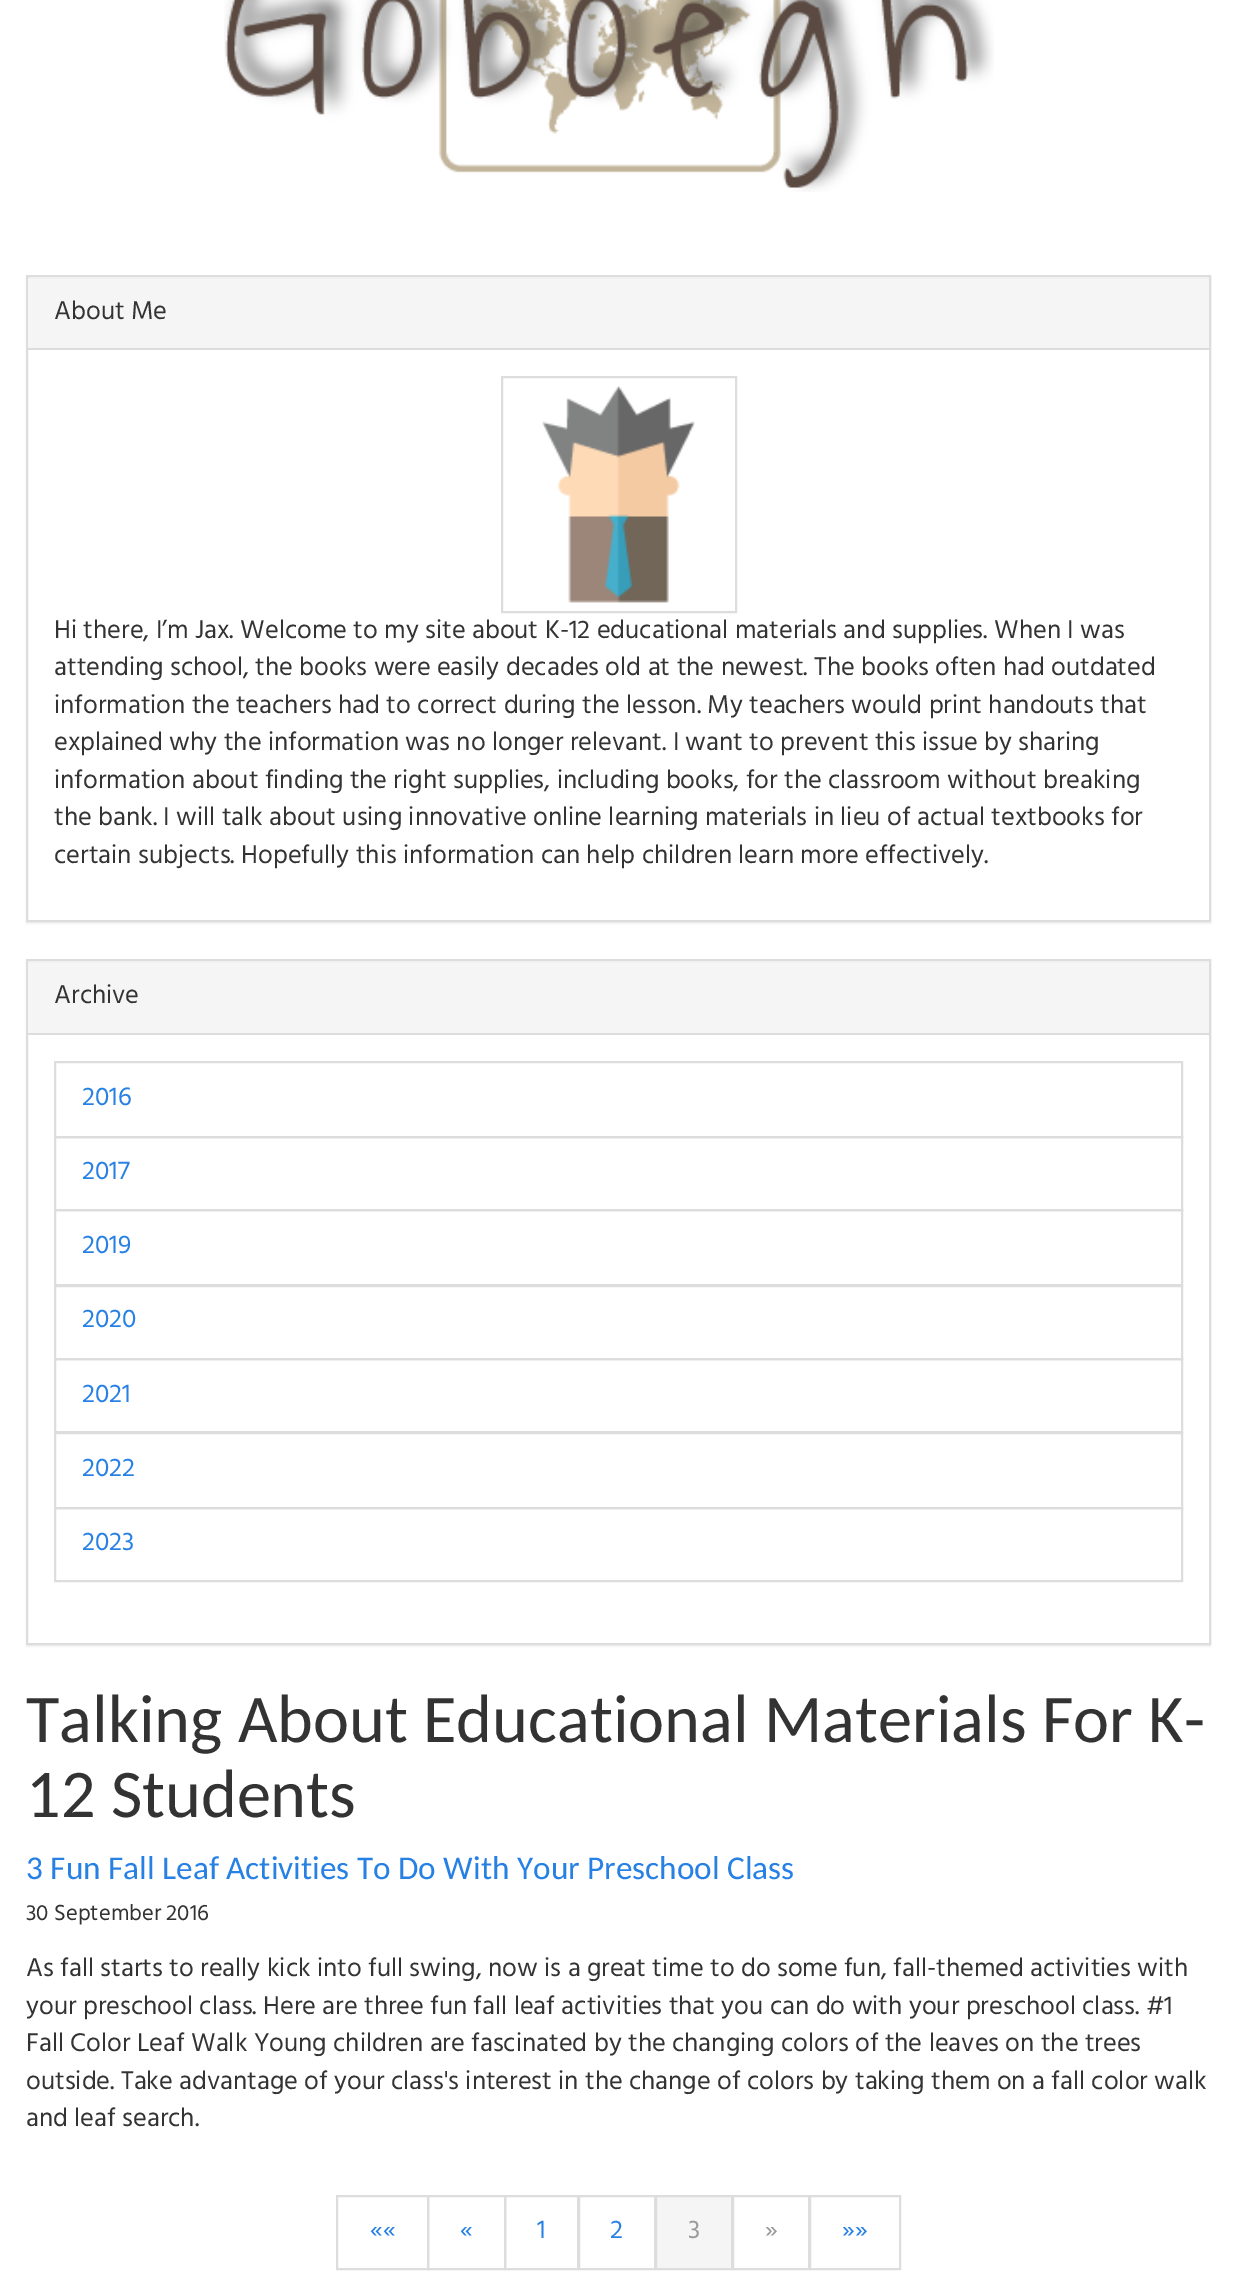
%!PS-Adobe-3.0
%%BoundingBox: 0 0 1236 2286
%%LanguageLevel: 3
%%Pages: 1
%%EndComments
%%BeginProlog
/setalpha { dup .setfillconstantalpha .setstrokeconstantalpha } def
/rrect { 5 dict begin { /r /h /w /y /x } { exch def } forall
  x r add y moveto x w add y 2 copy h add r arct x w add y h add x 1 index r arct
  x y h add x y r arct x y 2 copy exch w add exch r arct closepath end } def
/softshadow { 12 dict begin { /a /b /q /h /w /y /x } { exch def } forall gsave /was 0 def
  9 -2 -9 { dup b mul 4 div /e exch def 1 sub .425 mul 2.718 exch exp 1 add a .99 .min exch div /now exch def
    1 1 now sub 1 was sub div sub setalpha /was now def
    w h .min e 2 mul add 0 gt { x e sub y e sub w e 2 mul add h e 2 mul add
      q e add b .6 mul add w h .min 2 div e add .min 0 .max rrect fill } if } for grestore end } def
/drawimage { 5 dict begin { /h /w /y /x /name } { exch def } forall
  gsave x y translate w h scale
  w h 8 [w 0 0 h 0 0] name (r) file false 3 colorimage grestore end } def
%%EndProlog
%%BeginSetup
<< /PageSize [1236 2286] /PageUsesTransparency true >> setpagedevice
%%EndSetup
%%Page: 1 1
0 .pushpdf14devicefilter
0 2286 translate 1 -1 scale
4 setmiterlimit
1 setgray
0 0 1236 2286 rectfill
(images/1.raw) 224 0 770 192 drawimage
0 setgray
26 277 1185 647 0 1 0.05 softshadow
1 setgray
28 350 1181 570 rectfill
0.867 setgray
2 setlinewidth
27 276 1183 645 rectstroke
0.961 setgray
28 279 1181 69 rectfill
0.867 setgray
28 348 1181 2 rectfill
502 377 234 235 rectstroke
(images/2.raw) 542 386 153 217 drawimage
0 setgray
26 961 1185 686 0 1 0.05 softshadow
1 setgray
28 1035 1181 608 rectfill
0.867 setgray
27 960 1183 684 rectstroke
0.961 setgray
28 963 1181 70 rectfill
0.867 setgray
28 1033 1181 2 rectfill
55 1062 1127 75 rectstroke
55 1137 1127 73 rectstroke
55 1210 1127 75 rectstroke
55 1286 1127 73 rectstroke
55 1359 1127 73 rectstroke
55 1433 1127 75 rectstroke
55 1508 1127 73 rectstroke
337 2196 91 73 rectstroke
428 2196 77 73 rectstroke
505 2196 73 73 rectstroke
579 2196 76 73 rectstroke
733 2196 76 73 rectstroke
0.961 setgray
newpath 656 2196 moveto 732 2196 lineto 732 2269 lineto 656 2269 lineto closepath gsave fill grestore
0.867 setgray
stroke
810 2196 90 73 rectstroke
/Hind-Regular [26.25 0 0 -26.25 0 0] selectfont
0.2 setgray
54 319 moveto (About Me) show
54 638 moveto (Hi there, I’m Jax. Welcome to my site about K-12 educational materials and supplies. When I was) show
54 675 moveto (attending school, the books were easily decades old at the newest. The books often had outdated) show
54 713 moveto (information the teachers had to correct during the lesson. My teachers would print handouts that) show
54 750 moveto (explained why the information was no longer relevant. I want to prevent this issue by sharing) show
54 788 moveto (information about finding the right supplies, including books, for the classroom without breaking) show
54 825 moveto (the bank. I will talk about using innovative online learning materials in lieu of actual textbooks for) show
54 863 moveto (certain subjects. Hopefully this information can help children learn more effectively.) show
54 1003 moveto (Archive) show
0.153 0.502 0.89 setrgbcolor
82 1105 moveto (2016) show
82 1179 moveto (2017) show
82 1253 moveto (2019) show
82 1327 moveto (2020) show
82 1402 moveto (2021) show
82 1476 moveto (2022) show
82 1550 moveto (2023) show
/Carlito-Regular [68.25 0 0 -68.25 0 0] selectfont
0.2 setgray
26 1742 moveto (Talking About Educational Materials For K-) show
26 1817 moveto (12 Students) show
/Carlito-Regular [33.25 0 0 -33.25 0 0] selectfont
0.153 0.502 0.89 setrgbcolor
26 1879 moveto (3 Fun Fall Leaf Activities To Do With Your Preschool Class) show
/Hind-Regular [22.5 0 0 -22.5 0 0] selectfont
0.2 setgray
26 1920 moveto (30 September 2016) show
/Hind-Regular [26.25 0 0 -26.25 0 0] selectfont
26 1976 moveto (As fall starts to really kick into full swing, now is a great time to do some fun, fall-themed activities with) show
26 2014 moveto (your preschool class. Here are three fun fall leaf activities that you can do with your preschool class. #1) show
26 2051 moveto (Fall Color Leaf Walk Young children are fascinated by the changing colors of the leaves on the trees) show
26 2089 moveto (outside. Take advantage of your class's interest in the change of colors by taking them on a fall color walk) show
26 2126 moveto (and leaf search.) show
0.153 0.502 0.89 setrgbcolor
370 2238 moveto (««) show
460 2238 moveto («) show
537 2238 moveto (1) show
610 2238 moveto (2) show
0.6 setgray
688 2238 moveto (3) show
765 2238 moveto (») show
0.153 0.502 0.89 setrgbcolor
842 2238 moveto (»») show
.poppdf14devicefilter showpage
%%EOF
